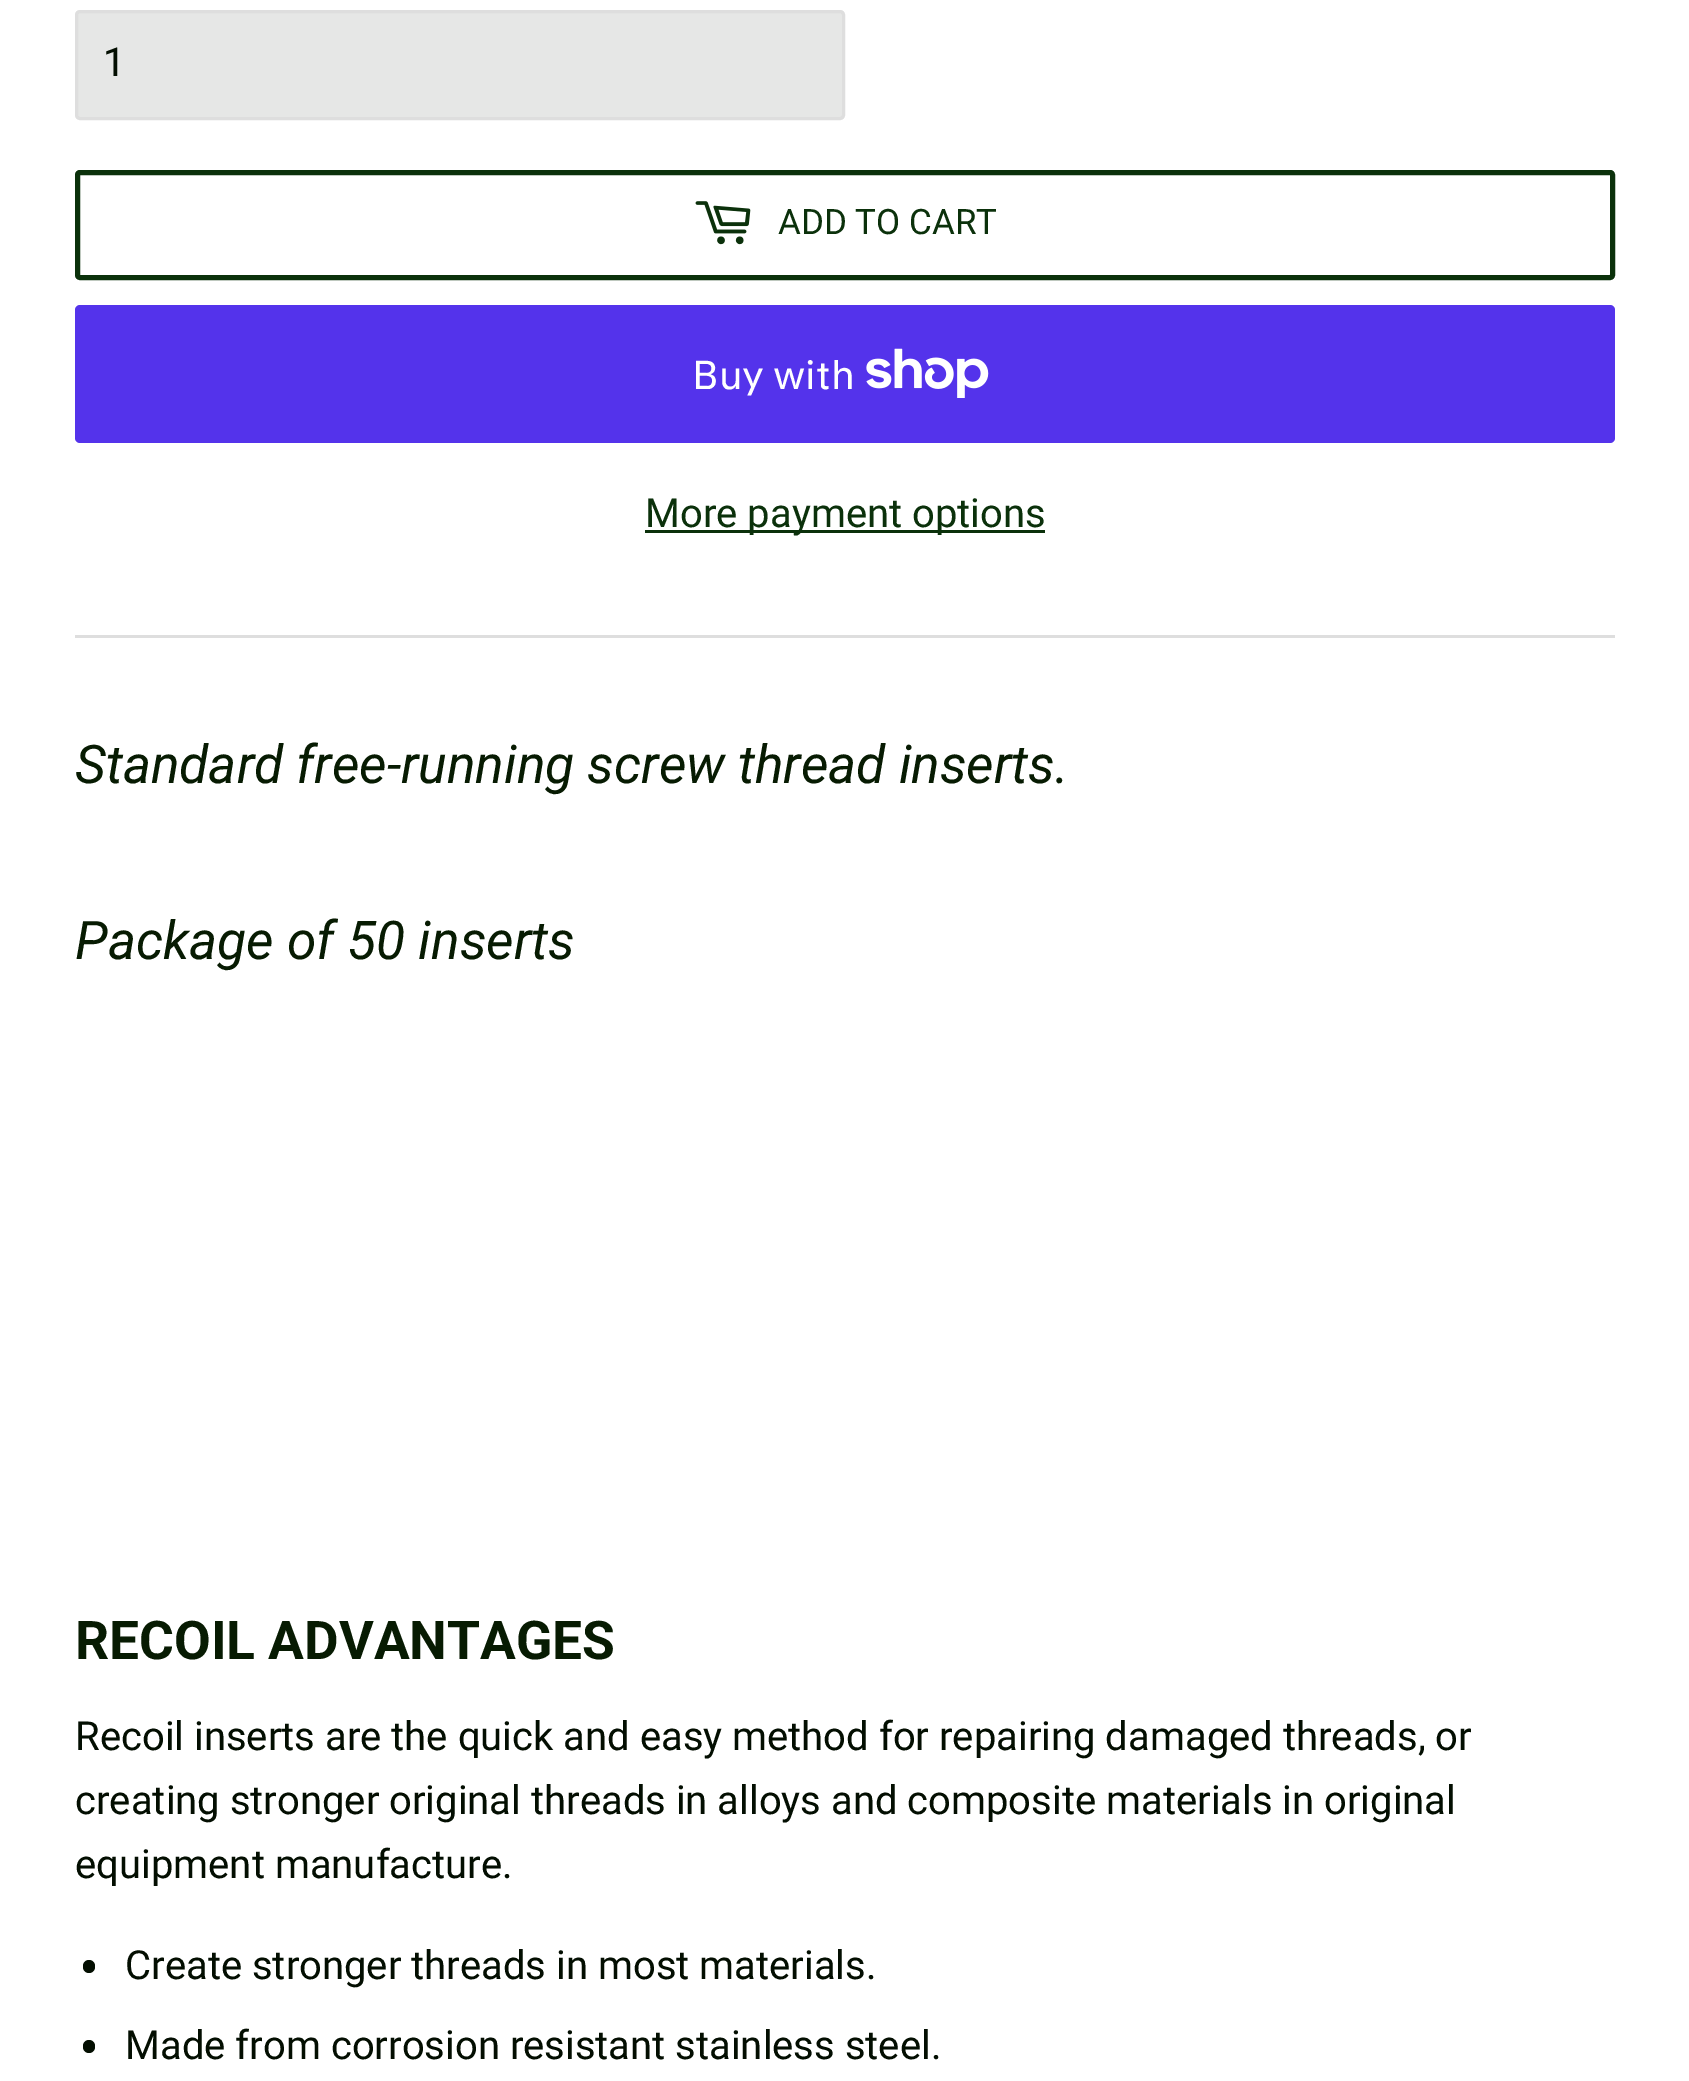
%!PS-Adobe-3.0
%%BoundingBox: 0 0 1689 2081
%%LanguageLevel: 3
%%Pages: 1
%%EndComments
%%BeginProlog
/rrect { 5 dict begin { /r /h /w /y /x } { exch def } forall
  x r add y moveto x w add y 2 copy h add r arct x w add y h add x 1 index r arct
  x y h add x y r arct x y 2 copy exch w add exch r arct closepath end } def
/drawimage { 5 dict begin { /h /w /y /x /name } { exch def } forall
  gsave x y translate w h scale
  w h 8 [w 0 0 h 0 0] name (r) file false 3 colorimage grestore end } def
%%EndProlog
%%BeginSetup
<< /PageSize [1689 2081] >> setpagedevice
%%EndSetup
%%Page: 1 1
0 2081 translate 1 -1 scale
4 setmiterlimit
1 setgray
0 0 1689 2081 rectfill
0.902 0.906 0.902 setrgbcolor
76.5 11.5 767 107 3.5 rrect gsave fill grestore
0.871 setgray
3 setlinewidth
stroke
0.043 0.192 0.043 setrgbcolor
5 setlinewidth
77.5 172.5 1535 105 2.5 rrect stroke
(images/1.raw) 695 201 56 44 drawimage
0.329 0.2 0.922 setrgbcolor
75 305 1540 138 5 rrect fill
(images/2.raw) 866 348 123 50 drawimage
0.043 0.192 0.043 setrgbcolor
645 530 400 3 rectfill
0.871 setgray
75 635 1540 3 rectfill
0.012 0.055 0.004 setrgbcolor
83 1960 12 13 6 rrect fill
83 2040 12 13 6 rrect fill
/Roboto-Regular [40 0 0 -40 0 0] selectfont
103 76 moveto (1) show
/Roboto-Regular [35 0 0 -35 0 0] selectfont
0.043 0.192 0.043 setrgbcolor
778 234 moveto (ADD TO CART) show
/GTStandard-Regular [40 0 0 -40 0 0] selectfont
1 setgray
692 389 moveto (Buy with) show
/Roboto-Regular [40 0 0 -40 0 0] selectfont
0.043 0.192 0.043 setrgbcolor
645 527 moveto (More payment options) show
/Roboto-Italic [53.3 0 0 -53.3 0 0] selectfont
0.027 0.106 0.008 setrgbcolor
75 783 moveto (Standard free-running screw thread inserts.) show
75 959 moveto (Package of 50 inserts) show
/Roboto-Bold [53.3 0 0 -53.3 0 0] selectfont
75 1659 moveto (RECOIL ADVANTAGES) show
/Roboto-Regular [40 0 0 -40 0 0] selectfont
0.012 0.055 0.004 setrgbcolor
75 1750 moveto (Recoil inserts are the quick and easy method for repairing damaged threads, or) show
75 1814 moveto (creating stronger original threads in alloys and composite materials in original) show
75 1878 moveto (equipment manufacture.) show
125 1979 moveto (Create stronger threads in most materials.) show
125 2059 moveto (Made from corrosion resistant stainless steel.) show
showpage
%%EOF
